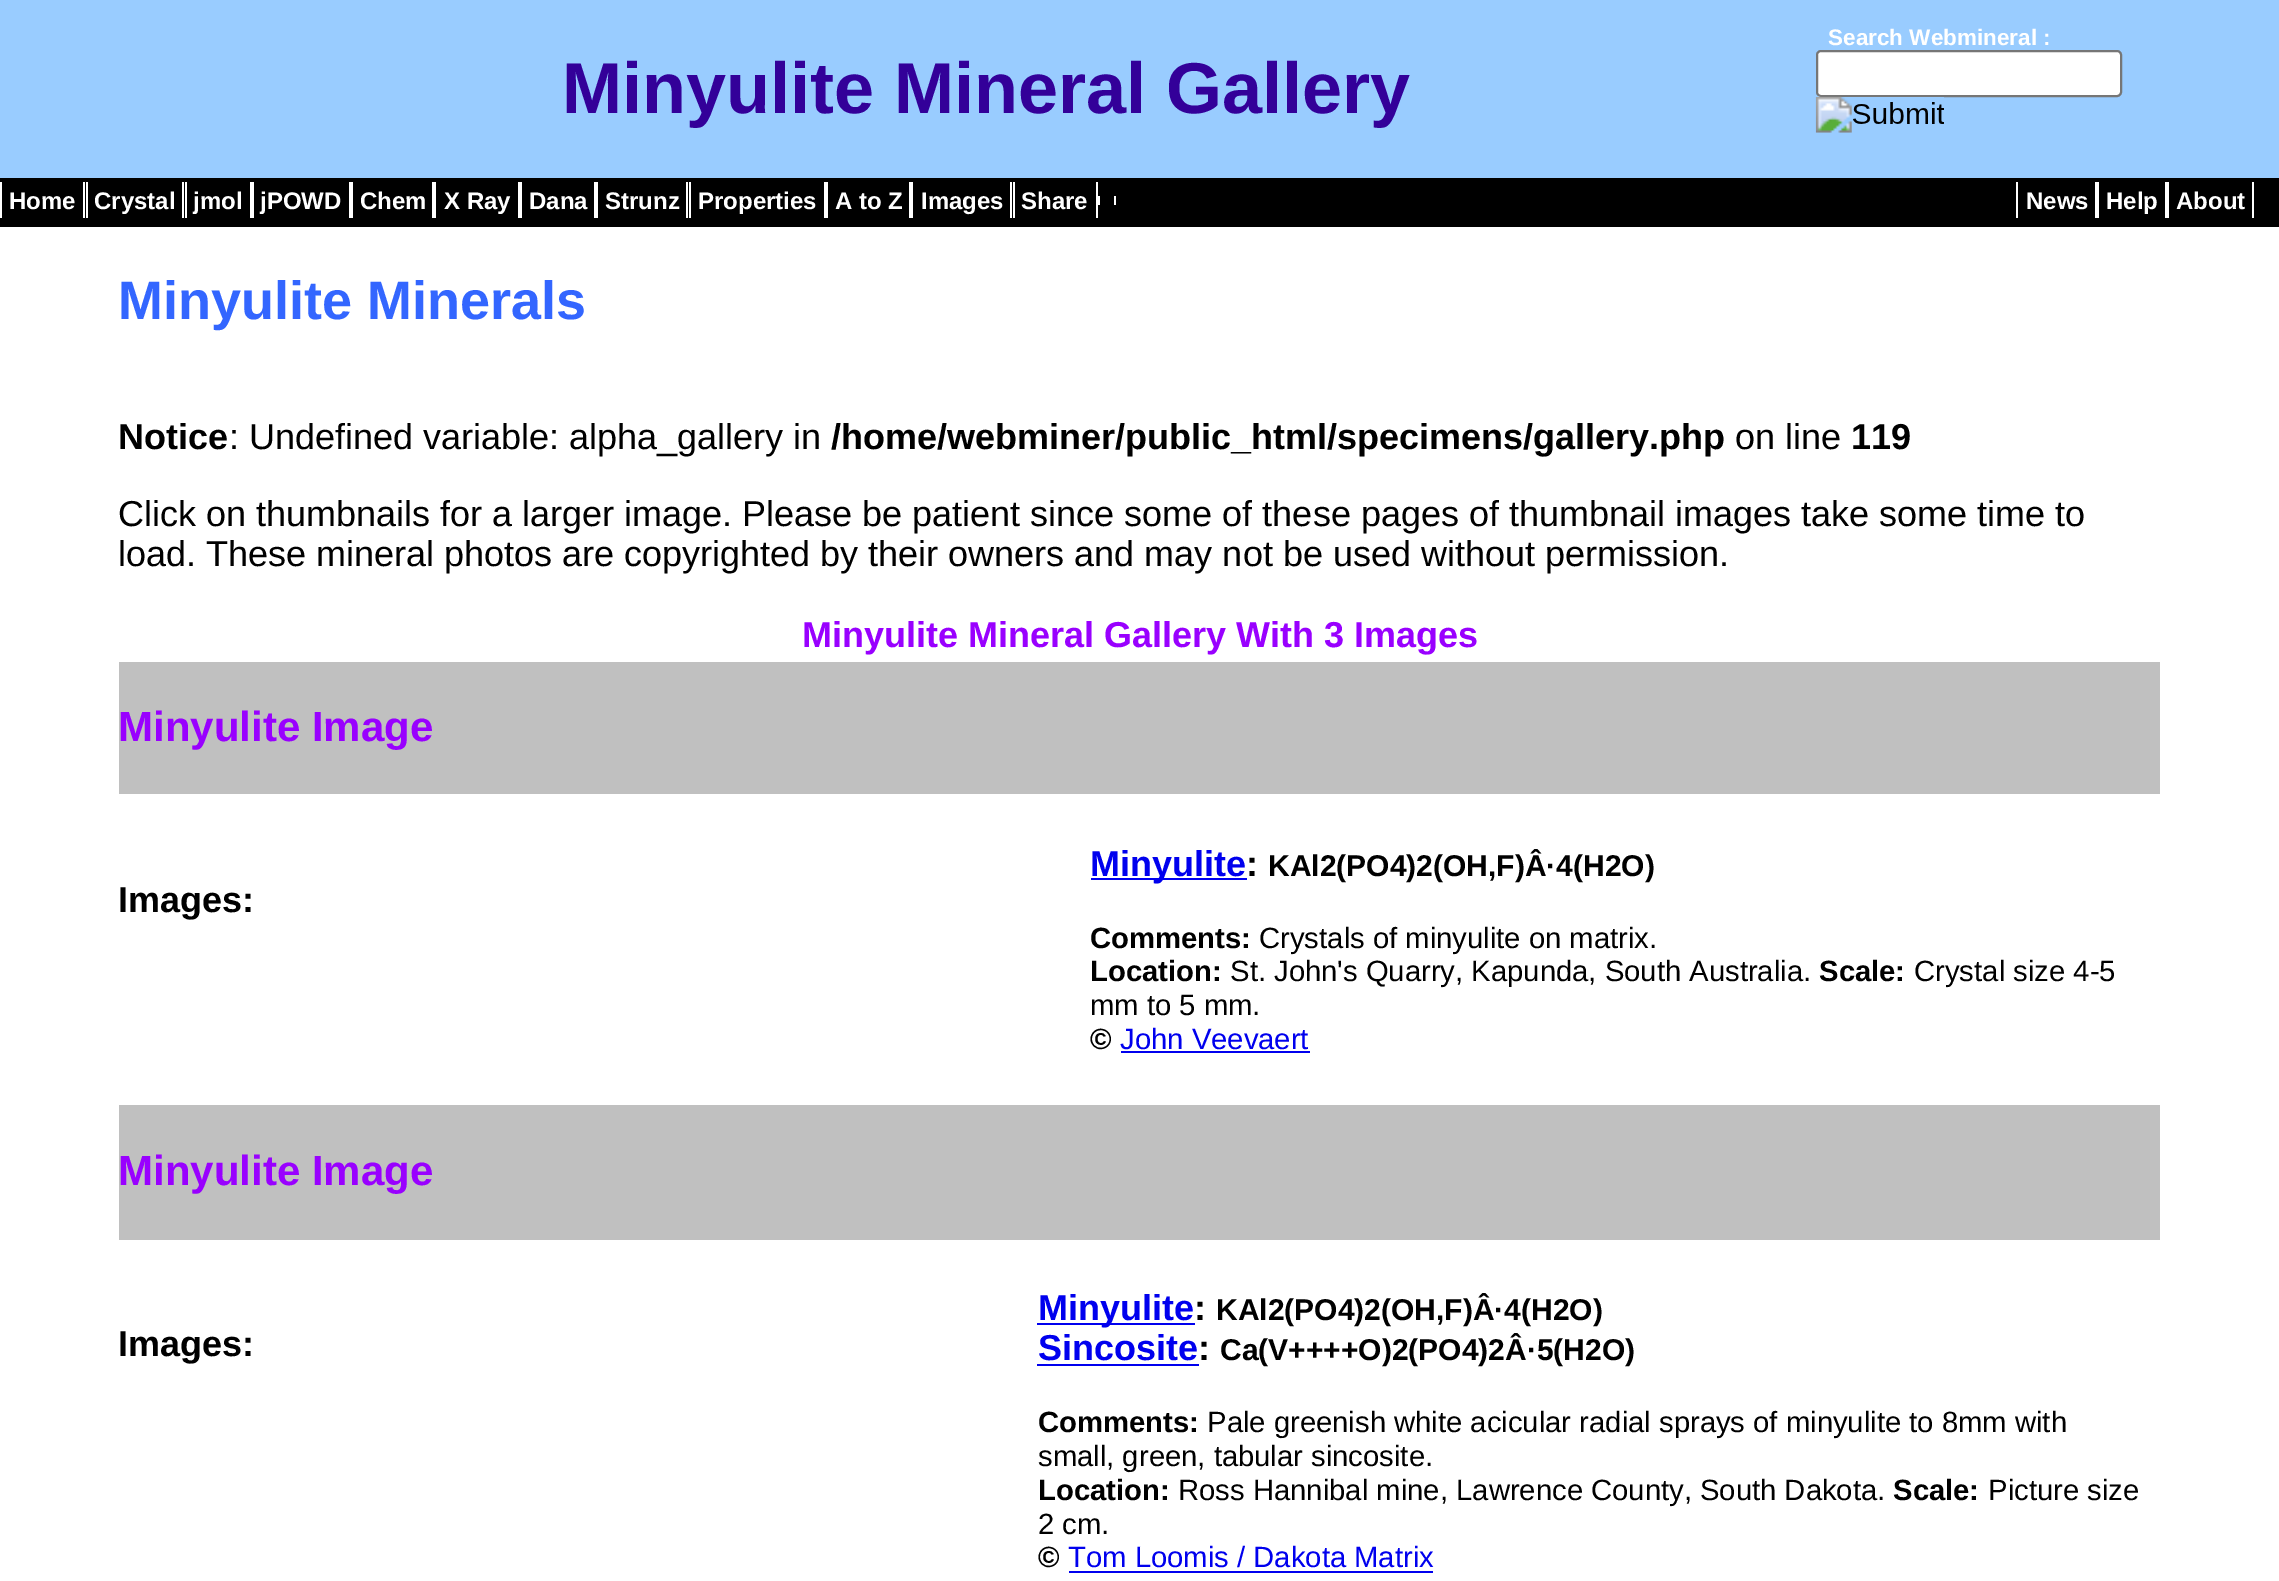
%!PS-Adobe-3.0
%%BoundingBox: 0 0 2279 1581
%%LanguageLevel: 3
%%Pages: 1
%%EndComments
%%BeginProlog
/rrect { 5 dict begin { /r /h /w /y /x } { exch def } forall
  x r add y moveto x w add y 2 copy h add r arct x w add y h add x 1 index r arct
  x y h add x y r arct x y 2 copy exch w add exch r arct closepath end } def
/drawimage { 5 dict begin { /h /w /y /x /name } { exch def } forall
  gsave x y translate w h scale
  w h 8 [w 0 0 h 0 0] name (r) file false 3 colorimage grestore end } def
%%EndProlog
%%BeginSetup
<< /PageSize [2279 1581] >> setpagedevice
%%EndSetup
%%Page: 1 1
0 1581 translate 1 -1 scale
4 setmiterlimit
1 setgray
0 0 2279 1581 rectfill
0.6 0.8 1 setrgbcolor
0 0 2279 178 rectfill
0 setgray
0 178 2279 49 rectfill
1 setgray
1817 51 304 45 4 rrect gsave fill grestore
0.463 setgray
2 setlinewidth
stroke
(images/1.raw) 1815 96 129 37 drawimage
1 setgray
83 182 2 36 rectfill
0 182 2 36 rectfill
182 182 2 36 rectfill
86 182 2 36 rectfill
250 182 4 36 rectfill
185 182 2 36 rectfill
349 182 4 36 rectfill
432 182 4 36 rectfill
518 182 4 36 rectfill
594 182 4 36 rectfill
686 182 2 36 rectfill
824 182 4 36 rectfill
689 182 2 36 rectfill
909 182 4 36 rectfill
1010 182 2 36 rectfill
1096 182 2 36 rectfill
1013 182 2 36 rectfill
1114 196 2 9 rectfill
1098 196 2 9 rectfill
2095 182 4 36 rectfill
2016 182 2 36 rectfill
2165 182 4 36 rectfill
2252 182 2 36 rectfill
0.753 setgray
119 662 2041 132 rectfill
0 0 0.933 setrgbcolor
1091 878 156 2 rectfill
1121 1051 189 2 rectfill
0.753 setgray
119 1105 2041 135 rectfill
0 0 0.933 setrgbcolor
1037 1323 158 2 rectfill
1037 1364 162 2 rectfill
1069 1571 364 2 rectfill
/LiberationSans-Bold [22.5 0 0 -22.5 0 0] selectfont
1 setgray
1828 45 moveto (Search Webmineral :) show
/LiberationSans-Bold [72 0 0 -72 0 0] selectfont
0.2 0 0.6 setrgbcolor
562 113 moveto (Minyulite Mineral Gallery) show
/LiberationSans-Bold [24 0 0 -24 0 0] selectfont
1 setgray
9 209 moveto (Home) show
94 209 moveto (Crystal) show
193 209 moveto (jmol) show
260 209 moveto (jPOWD) show
360 209 moveto (Chem) show
444 209 moveto (X Ray) show
529 209 moveto (Dana) show
605 209 moveto (Strunz) show
698 209 moveto (Properties) show
835 209 moveto (A to Z) show
921 209 moveto (Images) show
1021 209 moveto (Share) show
2026 209 moveto (News) show
2106 209 moveto (Help) show
2176 209 moveto (About) show
/LiberationSans-Bold [54 0 0 -54 0 0] selectfont
0.2 0.4 1 setrgbcolor
118 319 moveto (Minyulite Minerals) show
/LiberationSans-Bold [36 0 0 -36 0 0] selectfont
0 setgray
118 449 moveto (Notice) show
/LiberationSans-Regular [36 0 0 -36 0 0] selectfont
229 449 moveto (: Undefined variable: alpha_gallery in) show
/LiberationSans-Bold [36 0 0 -36 0 0] selectfont
831 449 moveto (/home/webminer/public_html/specimens/gallery.php) show
/LiberationSans-Regular [36 0 0 -36 0 0] selectfont
1735 449 moveto (on line) show
/LiberationSans-Bold [36 0 0 -36 0 0] selectfont
1851 449 moveto (119) show
/LiberationSans-Regular [36 0 0 -36 0 0] selectfont
118 526 moveto (Click on thumbnails for a larger image. Please be patient since some of these pages of thumbnail images take some time to) show
118 566 moveto (load. These mineral photos are copyrighted by their owners and may not be used without permission.) show
/LiberationSans-Bold [36 0 0 -36 0 0] selectfont
0.6 0 1 setrgbcolor
802 647 moveto (Minyulite Mineral Gallery With 3 Images) show
/LiberationSans-Bold [42 0 0 -42 0 0] selectfont
118 741 moveto (Minyulite Image) show
/LiberationSans-Bold [36 0 0 -36 0 0] selectfont
0 setgray
118 912 moveto (Images:) show
0 0 0.933 setrgbcolor
1090 876 moveto (Minyulite) show
0 setgray
1246 876 moveto (:) show
/LiberationSans-Bold [30 0 0 -30 0 0] selectfont
1268 876 moveto (KAl2\(PO4\)2\(OH,F\)Â·4\(H2O\)) show
/LiberationSans-Bold [29.25 0 0 -29.25 0 0] selectfont
1090 948 moveto (Comments:) show
/LiberationSans-Regular [29.25 0 0 -29.25 0 0] selectfont
1259 948 moveto (Crystals of minyulite on matrix.) show
/LiberationSans-Bold [29.25 0 0 -29.25 0 0] selectfont
1090 981 moveto (Location:) show
/LiberationSans-Regular [29.25 0 0 -29.25 0 0] selectfont
1230 981 moveto (St. John's Quarry, Kapunda, South Australia.) show
/LiberationSans-Bold [29.25 0 0 -29.25 0 0] selectfont
1819 981 moveto (Scale:) show
/LiberationSans-Regular [29.25 0 0 -29.25 0 0] selectfont
1914 981 moveto (Crystal size 4-5) show
1090 1015 moveto (mm to 5 mm.) show
/LiberationSans-Bold [29.25 0 0 -29.25 0 0] selectfont
1090 1049 moveto (©) show
/LiberationSans-Regular [29.25 0 0 -29.25 0 0] selectfont
0 0 0.933 setrgbcolor
1120 1049 moveto (John Veevaert) show
/LiberationSans-Bold [42 0 0 -42 0 0] selectfont
0.6 0 1 setrgbcolor
118 1185 moveto (Minyulite Image) show
/LiberationSans-Bold [36 0 0 -36 0 0] selectfont
0 setgray
118 1356 moveto (Images:) show
0 0 0.933 setrgbcolor
1038 1320 moveto (Minyulite) show
0 setgray
1194 1320 moveto (:) show
/LiberationSans-Bold [30 0 0 -30 0 0] selectfont
1216 1320 moveto (KAl2\(PO4\)2\(OH,F\)Â·4\(H2O\)) show
/LiberationSans-Bold [36 0 0 -36 0 0] selectfont
0 0 0.933 setrgbcolor
1038 1360 moveto (Sincosite) show
0 setgray
1198 1360 moveto (:) show
/LiberationSans-Bold [30 0 0 -30 0 0] selectfont
1220 1360 moveto (Ca\(V++++O\)2\(PO4\)2Â·5\(H2O\)) show
/LiberationSans-Bold [29.25 0 0 -29.25 0 0] selectfont
1038 1432 moveto (Comments:) show
/LiberationSans-Regular [29.25 0 0 -29.25 0 0] selectfont
1207 1432 moveto (Pale greenish white acicular radial sprays of minyulite to 8mm with) show
1038 1466 moveto (small, green, tabular sincosite.) show
/LiberationSans-Bold [29.25 0 0 -29.25 0 0] selectfont
1038 1500 moveto (Location:) show
/LiberationSans-Regular [29.25 0 0 -29.25 0 0] selectfont
1178 1500 moveto (Ross Hannibal mine, Lawrence County, South Dakota.) show
/LiberationSans-Bold [29.25 0 0 -29.25 0 0] selectfont
1893 1500 moveto (Scale:) show
/LiberationSans-Regular [29.25 0 0 -29.25 0 0] selectfont
1988 1500 moveto (Picture size) show
1038 1534 moveto (2 cm.) show
/LiberationSans-Bold [29.25 0 0 -29.25 0 0] selectfont
1038 1567 moveto (©) show
/LiberationSans-Regular [29.25 0 0 -29.25 0 0] selectfont
0 0 0.933 setrgbcolor
1068 1567 moveto (Tom Loomis / Dakota Matrix) show
showpage
%%EOF
